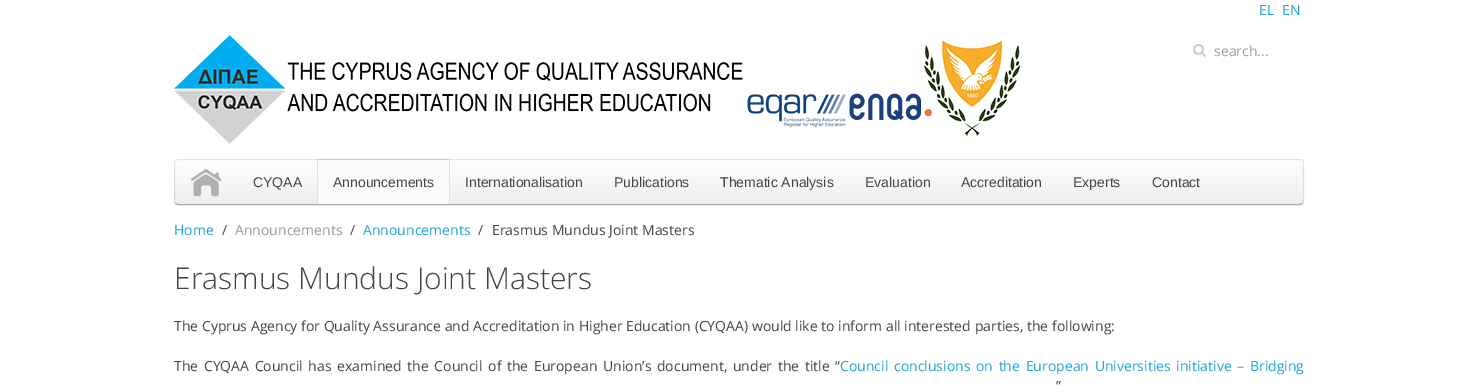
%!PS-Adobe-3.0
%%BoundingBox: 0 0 1478 387
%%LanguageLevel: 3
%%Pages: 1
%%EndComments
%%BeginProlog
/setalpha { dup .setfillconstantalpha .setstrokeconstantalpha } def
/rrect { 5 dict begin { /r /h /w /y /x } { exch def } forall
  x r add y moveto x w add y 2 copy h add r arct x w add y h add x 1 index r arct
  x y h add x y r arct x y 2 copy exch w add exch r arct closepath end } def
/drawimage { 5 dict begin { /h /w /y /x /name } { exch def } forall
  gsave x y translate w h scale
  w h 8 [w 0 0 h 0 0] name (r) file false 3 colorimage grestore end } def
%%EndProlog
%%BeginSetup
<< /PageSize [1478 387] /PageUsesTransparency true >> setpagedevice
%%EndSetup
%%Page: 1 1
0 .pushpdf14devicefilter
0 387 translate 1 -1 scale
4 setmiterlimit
1 setgray
0 0 1478 387 rectfill
(images/1.raw) 174 35 847 109 drawimage
(images/2.raw) 1193 44 13 13 drawimage
gsave 174 159 1130 46 4 rrect clip newpath
<< /ShadingType 2 /ColorSpace /DeviceRGB /Coords [739 159 739 205] /Extend [true true] /Function << /FunctionType 2 /Domain [0 1] /C0 [1 1 1] /C1 [0.933 0.933 0.933] /N 1 >> >> shfill grestore
0.655 setgray
newpath 1302.5 203.5 moveto 1300 204.5 lineto 178 204.5 lineto 175.5 203.5 lineto stroke
0.1 setalpha
0 setgray
newpath 175.5 203.5 moveto 175 203 174.5 202 174.5 201 curveto 174.5 163 lineto 174.5 162 175 161 175.5 160.5 curveto 176 160 177 159.5 178 159.5 curveto 1300 159.5 lineto 1301 159.5 1302 160 1302.5 160.5 curveto 1303 161 1303.5 162 1303.5 163 curveto 1303.5 201 lineto 1303.5 202 1303 203 1302.5 203.5 curveto stroke
1 setalpha
(images/3.raw) 190 169 32 28 drawimage
0.98 setgray
317 159 133 45 rectfill
0.784 setgray
newpath 317 159 moveto 450 159 lineto 449 160 lineto 318 160 lineto closepath fill
0.1 setalpha
0 setgray
newpath 450 159 moveto 450 204 lineto 449 204 lineto 449 160 lineto closepath fill
newpath 317 204 moveto 317 159 lineto 318 160 lineto 318 204 lineto closepath fill
/OpenSans-Regular [14 0 0 -14 0 0] selectfont
1 setalpha
0.122 0.635 0.839 setrgbcolor
1259 15 moveto (EL) show
1282 15 moveto (EN) show
0.6 setgray
1214 56 moveto (search...) show
/LiberationSans-Regular [14 0 0 -14 0 0] selectfont
0.267 setgray
253 187 moveto (CYQAA) show
333 187 moveto (Announcements) show
465 187 moveto (Internationalisation) show
614 187 moveto (Publications) show
720 187 moveto (Thematic Analysis) show
865 187 moveto (Evaluation) show
961 187 moveto (Accreditation) show
1073 187 moveto (Experts) show
1152 187 moveto (Contact) show
/OpenSans-Regular [14 0 0 -14 0 0] selectfont
0.122 0.635 0.839 setrgbcolor
174 235 moveto (Home) show
0.267 setgray
222 235 moveto (/) show
0.6 setgray
235 235 moveto (Announcements) show
0.267 setgray
350 235 moveto (/) show
0.122 0.635 0.839 setrgbcolor
363 235 moveto (Announcements) show
0.267 setgray
478 235 moveto (/) show
492 235 moveto (Erasmus Mundus Joint Masters) show
/OpenSans-Light [30 0 0 -30 0 0] selectfont
174 289 moveto (Erasmus Mundus Joint Masters) show
/OpenSans-Regular [14 0 0 -14 0 0] selectfont
174 331 moveto (The Cyprus Agency for Quality Assurance and Accreditation in Higher Education \(CYQAA\) would like to inform all interested parties, the following:) show
174 371 moveto 2 0 32 (The CYQAA Council has examined the Council of the European Union’s document, under the title “) widthshow
0.122 0.635 0.839 setrgbcolor
840 371 moveto 2 0 32 (Council conclusions on the European Universities initiative – Bridging) widthshow
0.267 setgray
1056 391 moveto (”) show
.poppdf14devicefilter showpage
%%EOF
